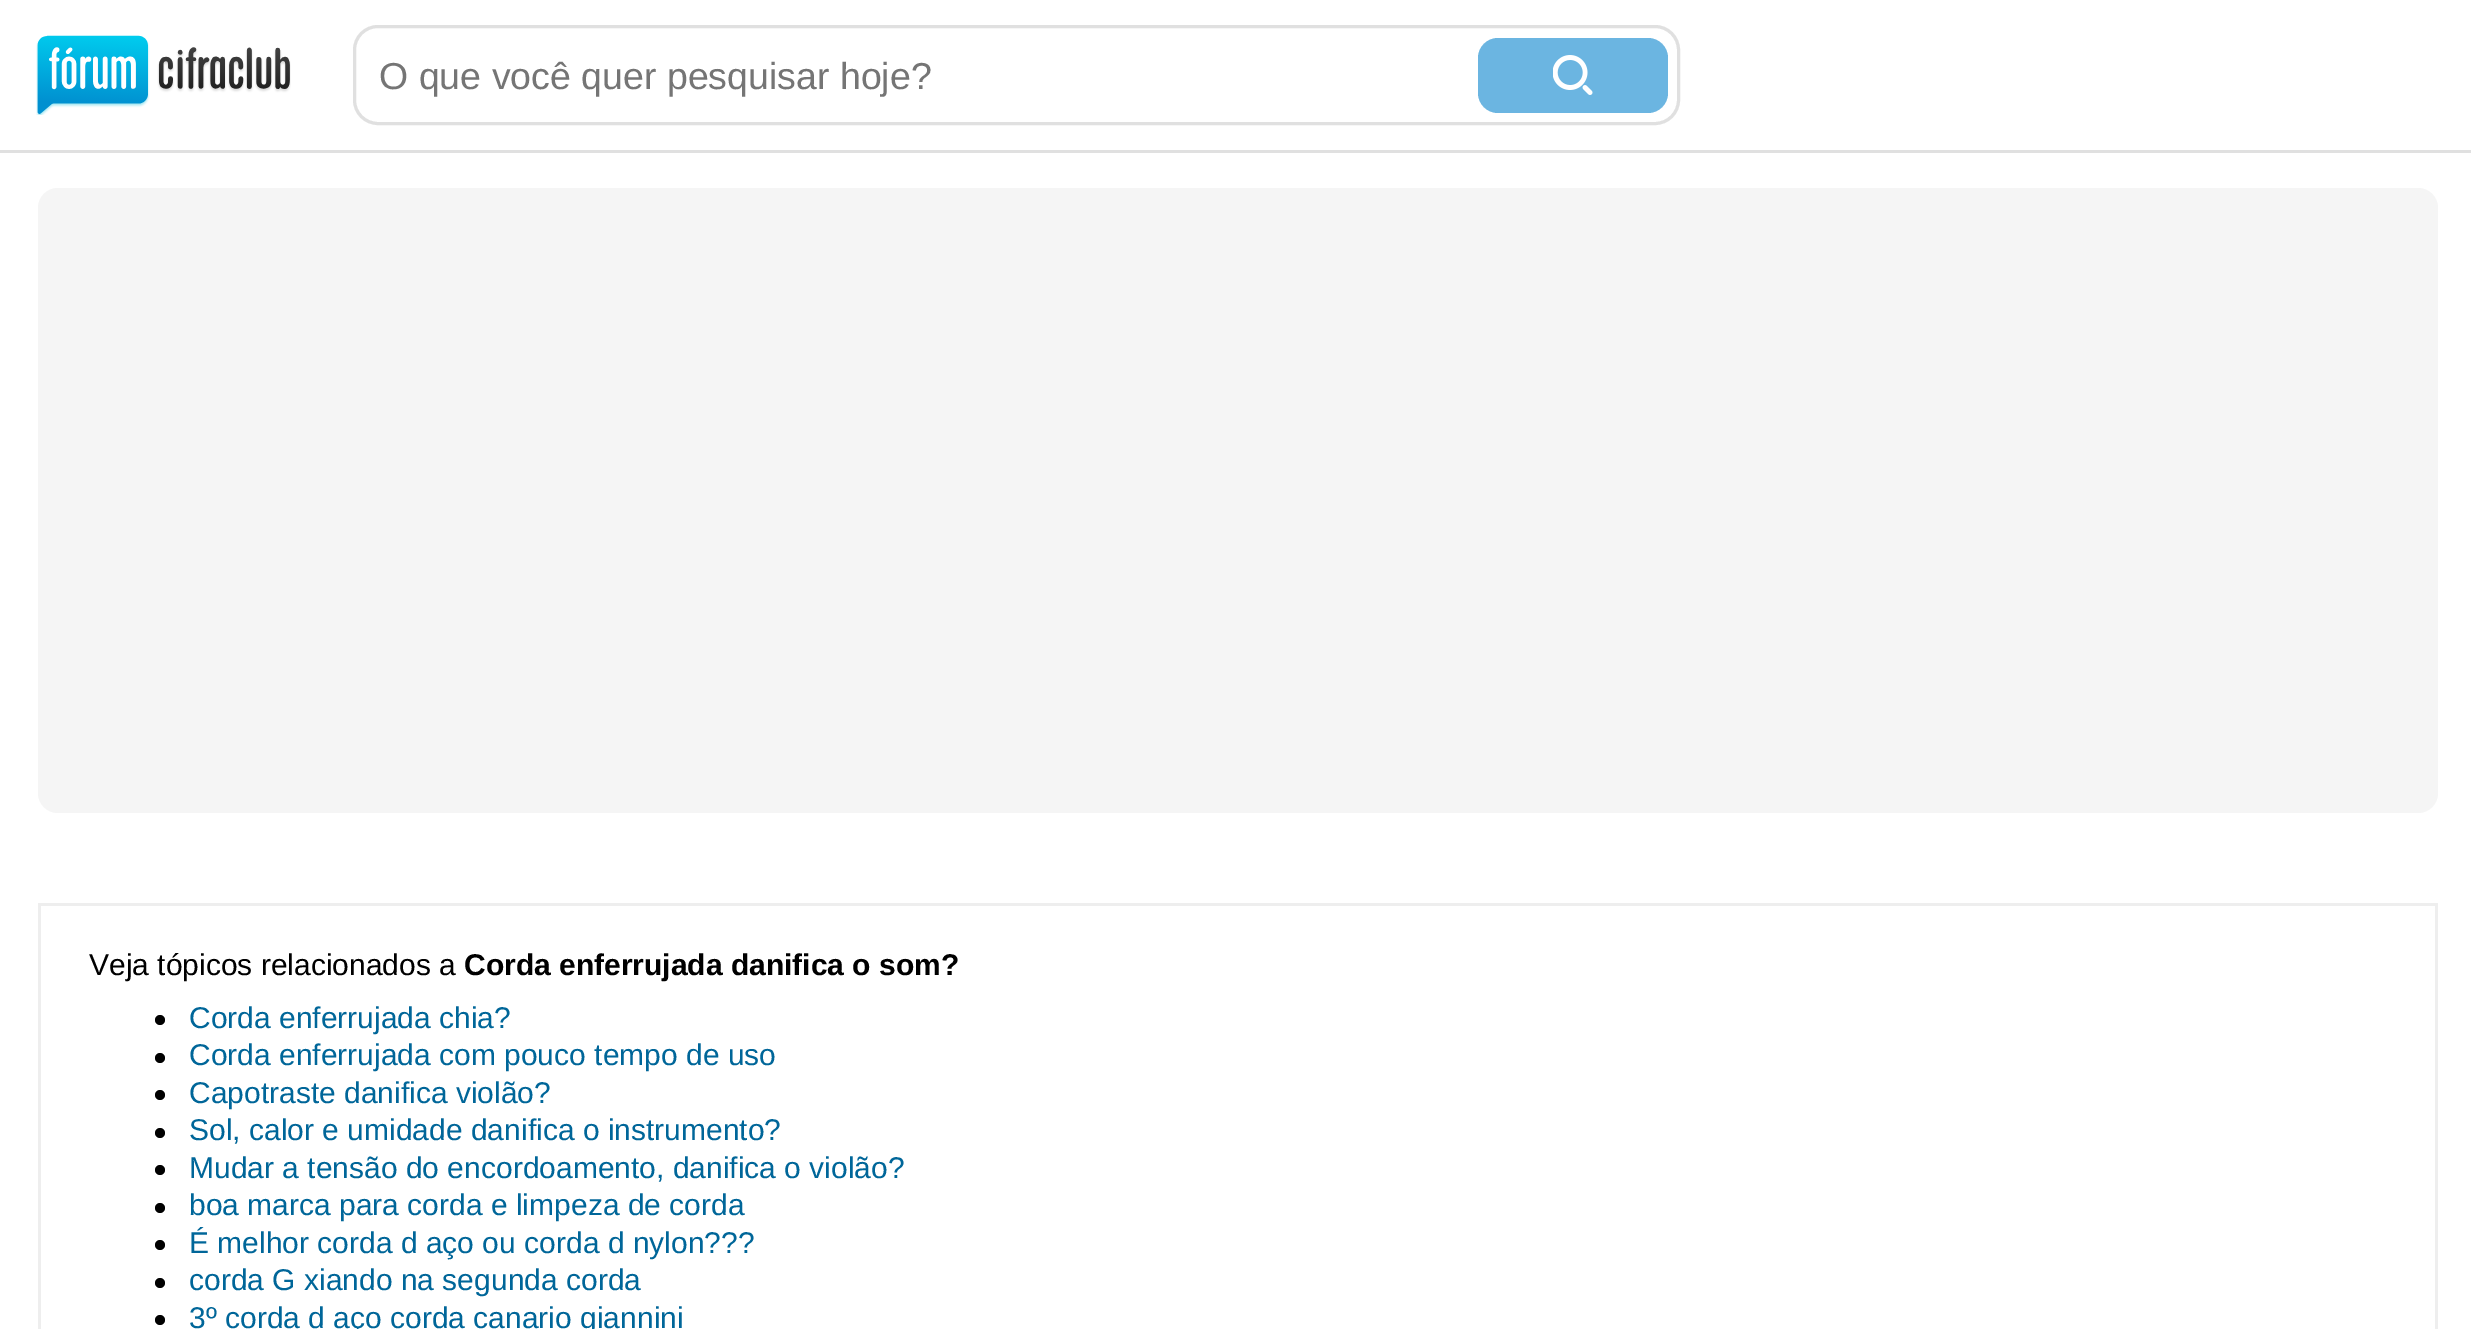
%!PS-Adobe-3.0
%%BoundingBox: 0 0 2471 1329
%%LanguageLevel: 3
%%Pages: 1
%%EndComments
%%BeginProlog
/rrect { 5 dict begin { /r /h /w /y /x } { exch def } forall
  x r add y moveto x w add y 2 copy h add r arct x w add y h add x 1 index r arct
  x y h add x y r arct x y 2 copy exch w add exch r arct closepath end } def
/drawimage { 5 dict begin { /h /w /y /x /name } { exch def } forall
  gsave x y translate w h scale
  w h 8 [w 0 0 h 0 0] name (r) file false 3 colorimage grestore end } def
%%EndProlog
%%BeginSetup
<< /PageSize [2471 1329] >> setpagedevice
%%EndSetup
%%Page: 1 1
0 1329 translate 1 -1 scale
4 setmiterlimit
1 setgray
0 0 2471 1329 rectfill
0.878 setgray
newpath 0 150 moveto 0 153 lineto 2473 153 lineto 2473 3 lineto 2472 3 lineto 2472 150 lineto closepath fill
(images/1.raw) 36 35 255 80 drawimage
3 setlinewidth
354.5 26.5 1324 97 23.5 rrect stroke
0.42 0.71 0.882 setrgbcolor
1478 38 190 75 20 rrect fill
(images/2.raw) 1553 55 40 40 drawimage
0.961 setgray
38 188 2400 625 20 rrect fill
0.933 setgray
38 903 2400 3 rectfill
2435 903 3 426 rectfill
38 903 3 426 rectfill
0 setgray
newpath 160 1020 5 0 360 arc closepath fill
newpath 160 1058 5 0 360 arc closepath fill
newpath 160 1095 5 0 360 arc closepath fill
newpath 160 1133 5 0 360 arc closepath fill
newpath 160 1170 5 0 360 arc closepath fill
newpath 160 1208 5 0 360 arc closepath fill
newpath 160 1245 5 0 360 arc closepath fill
newpath 160 1283 5 0 360 arc closepath fill
newpath 160 1320 5 0 360 arc closepath fill
/LiberationSans-Regular [37.5 0 0 -37.5 0 0] selectfont
0.459 setgray
379 89 moveto (O que você quer pesquisar hoje?) show
/LiberationSans-Regular [30 0 0 -30 0 0] selectfont
0 setgray
89 975 moveto (Veja tópicos relacionados a) show
/LiberationSans-Bold [30 0 0 -30 0 0] selectfont
464 975 moveto (Corda enferrujada danifica o som?) show
/LiberationSans-Regular [30 0 0 -30 0 0] selectfont
0 0.4 0.6 setrgbcolor
189 1028 moveto (Corda enferrujada chia?) show
189 1065 moveto (Corda enferrujada com pouco tempo de uso) show
189 1103 moveto (Capotraste danifica violão?) show
189 1140 moveto (Sol, calor e umidade danifica o instrumento?) show
189 1178 moveto (Mudar a tensão do encordoamento, danifica o violão?) show
189 1215 moveto (boa marca para corda e limpeza de corda) show
189 1253 moveto (É melhor corda d aço ou corda d nylon???) show
189 1290 moveto (corda G xiando na segunda corda) show
189 1328 moveto (3º corda d aço corda canario giannini) show
showpage
%%EOF
